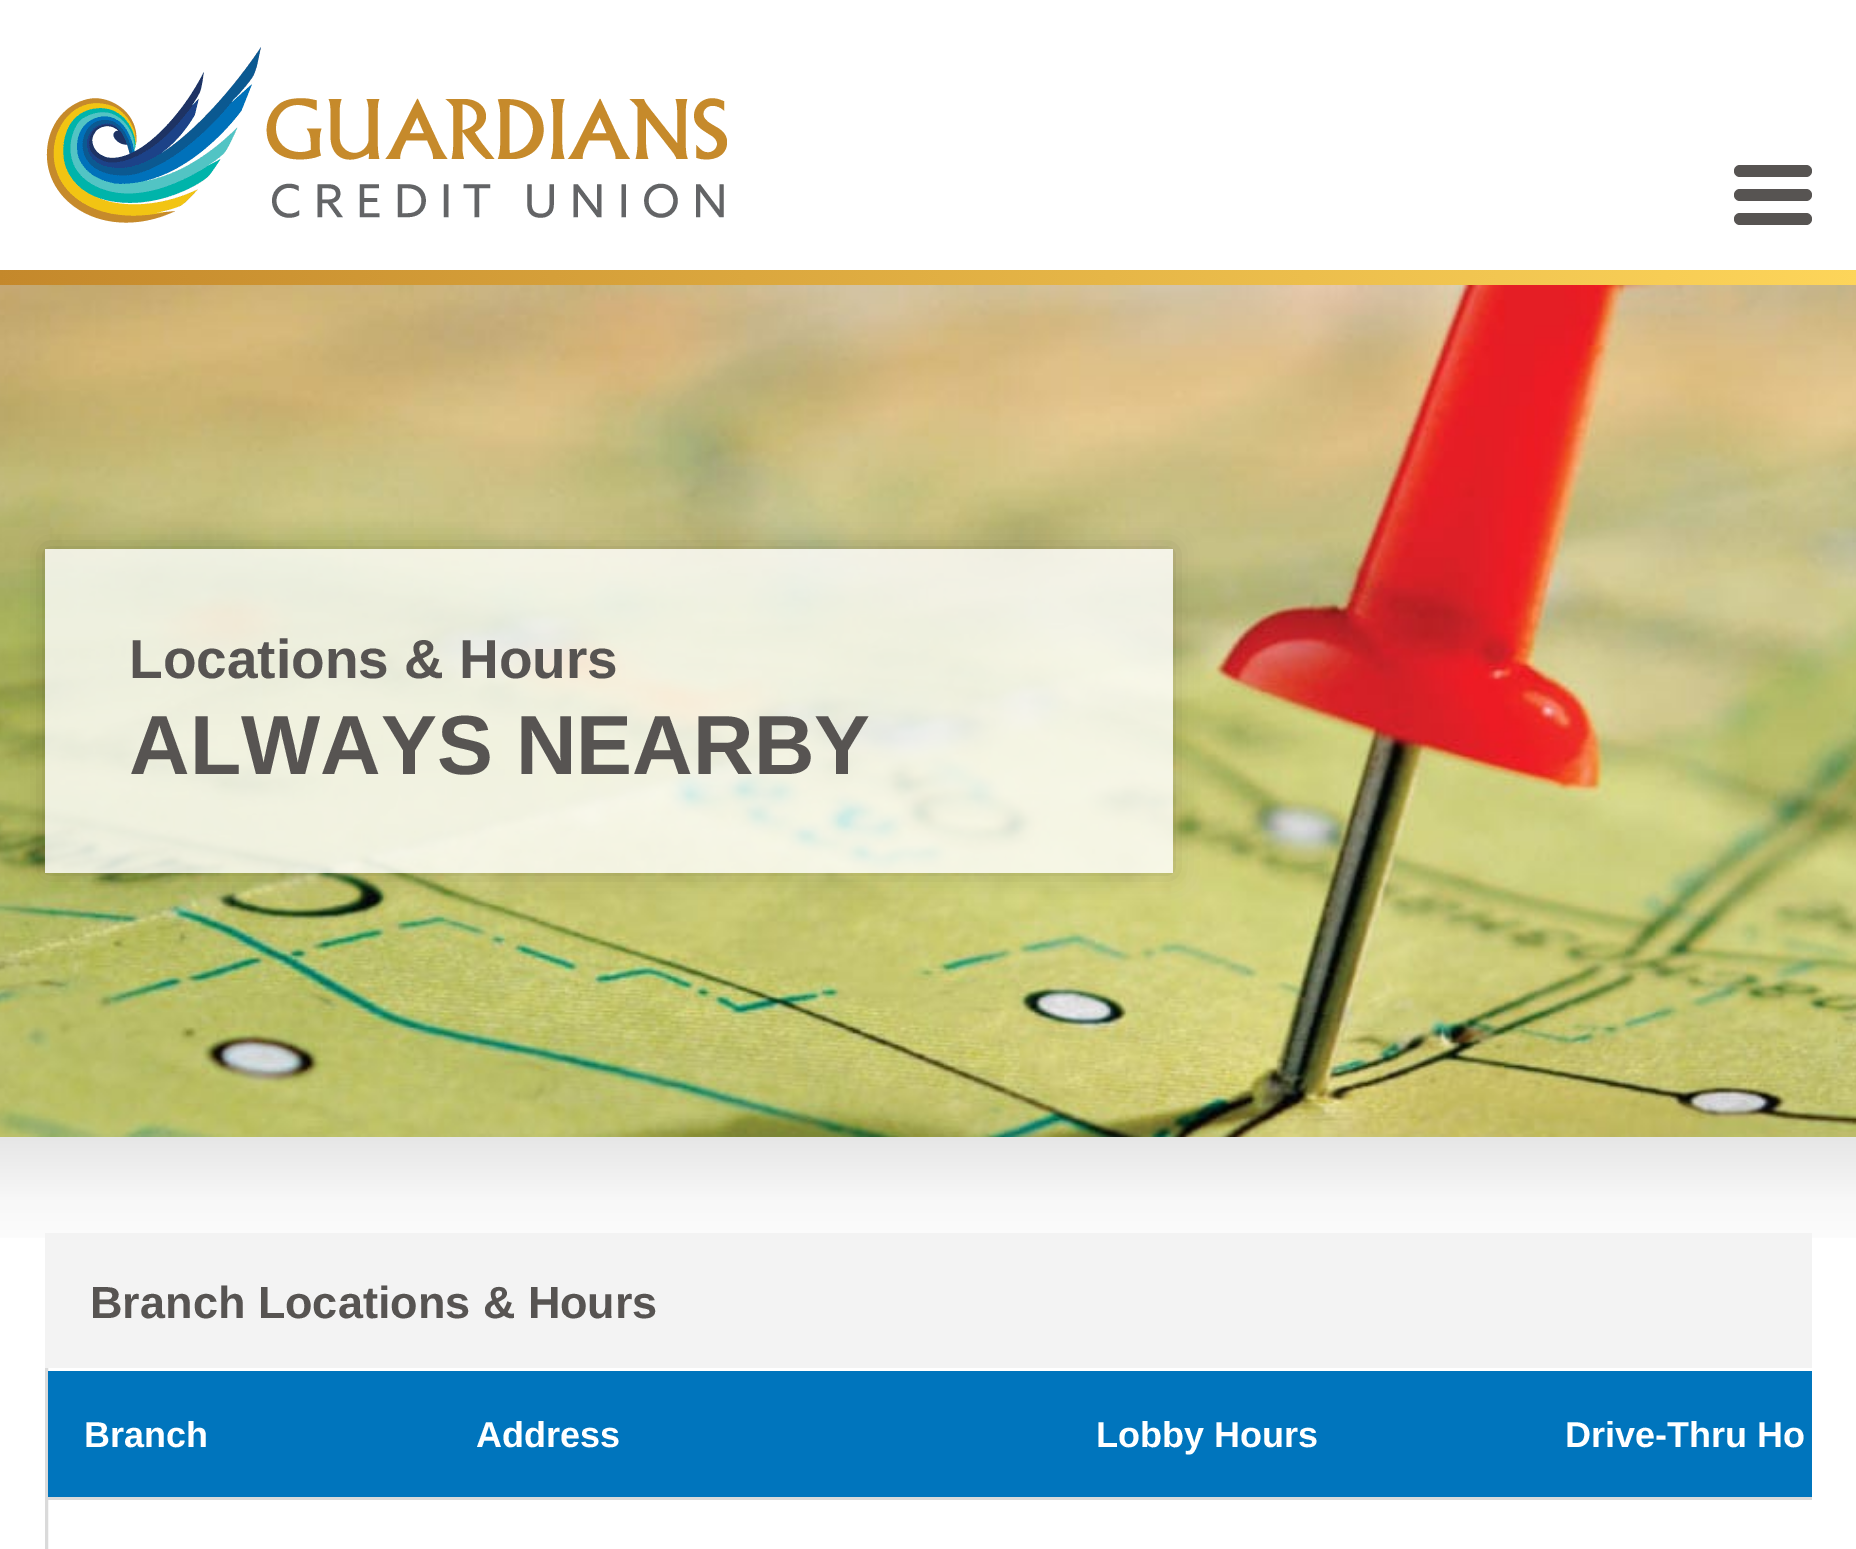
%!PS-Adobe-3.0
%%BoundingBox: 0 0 1856 1549
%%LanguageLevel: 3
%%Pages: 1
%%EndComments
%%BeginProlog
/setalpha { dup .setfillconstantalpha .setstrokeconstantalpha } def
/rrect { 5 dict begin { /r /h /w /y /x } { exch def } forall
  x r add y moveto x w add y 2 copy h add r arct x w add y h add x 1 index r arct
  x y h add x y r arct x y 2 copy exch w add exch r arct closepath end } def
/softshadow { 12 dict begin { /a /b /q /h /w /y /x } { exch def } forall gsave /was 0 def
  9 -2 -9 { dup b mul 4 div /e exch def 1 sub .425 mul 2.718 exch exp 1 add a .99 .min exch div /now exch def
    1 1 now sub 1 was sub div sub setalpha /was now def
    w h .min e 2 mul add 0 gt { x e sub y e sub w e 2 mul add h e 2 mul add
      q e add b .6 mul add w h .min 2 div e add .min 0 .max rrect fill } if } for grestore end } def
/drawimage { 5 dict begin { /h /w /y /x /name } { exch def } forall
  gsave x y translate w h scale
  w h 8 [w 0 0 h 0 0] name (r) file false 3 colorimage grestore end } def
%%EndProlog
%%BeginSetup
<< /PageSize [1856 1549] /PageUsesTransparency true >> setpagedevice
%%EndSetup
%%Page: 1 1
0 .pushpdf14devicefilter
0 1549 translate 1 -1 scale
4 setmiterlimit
1 setgray
0 0 1856 1549 rectfill
(images/1.raw) 46 47 681 176 drawimage
0.341 0.329 0.322 setrgbcolor
1734 165 78 12 6 rrect fill
1734 189 78 12 6 rrect fill
1734 213 78 12 6 rrect fill
(images/2.raw) 0 270 1856 15 drawimage
(images/3.raw) 0 285 1856 852 drawimage
gsave
newpath 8 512 moveto 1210 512 lineto 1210 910 lineto 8 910 lineto closepath 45 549 moveto 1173 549 lineto 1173 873 lineto 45 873 lineto closepath eoclip newpath
0 setgray
45 549 1128 324 0 12 0.2 softshadow
grestore
0.8 setalpha
1 setgray
45 549 1128 324 rectfill
1 setalpha
gsave newpath 0 1137 moveto 1856 1137 lineto 1856 1238 lineto 0 1238 lineto closepath clip newpath
<< /ShadingType 2 /ColorSpace /DeviceRGB /Coords [929 1137 929 1257] /Extend [true true] /Function << /FunctionType 3 /Domain [0 1] /Functions [<< /FunctionType 2 /Domain [0 1] /C0 [0.902 0.902 0.902] /C1 [0.969 0.969 0.969] /N 1 >> << /FunctionType 2 /Domain [0 1] /C0 [0.969 0.969 0.969] /C1 [1 1 1] /N 1 >>] /Bounds [0.5] /Encode [0 1 0 1] >> >> shfill grestore
gsave
45 1233 1767 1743 rectclip
0.855 setgray
3 setlinewidth
46.5 1234.5 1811 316 rectstroke
grestore
0.953 setgray
45 1233 1767 135 rectfill
0 0.459 0.741 setrgbcolor
48 1371 1764 126 rectfill
0.855 setgray
48 1497 1764 3 rectfill
/LiberationSans-Bold [55 0 0 -55 0 0] selectfont
0.341 0.329 0.322 setrgbcolor
129 678 moveto (Locations & Hours) show
/LiberationSans-Bold [83.9 0 0 -83.9 0 0] selectfont
129 774 moveto (ALWAYS NEARBY) show
/LiberationSans-Bold [45 0 0 -45 0 0] selectfont
90 1318 moveto (Branch Locations & Hours) show
/LiberationSans-Bold [36 0 0 -36 0 0] selectfont
1 setgray
84 1447 moveto (Branch) show
476 1447 moveto (Address) show
1096 1447 moveto (Lobby Hours) show
1565 1447 moveto (Drive-Thru Ho) show
.poppdf14devicefilter showpage
%%EOF
